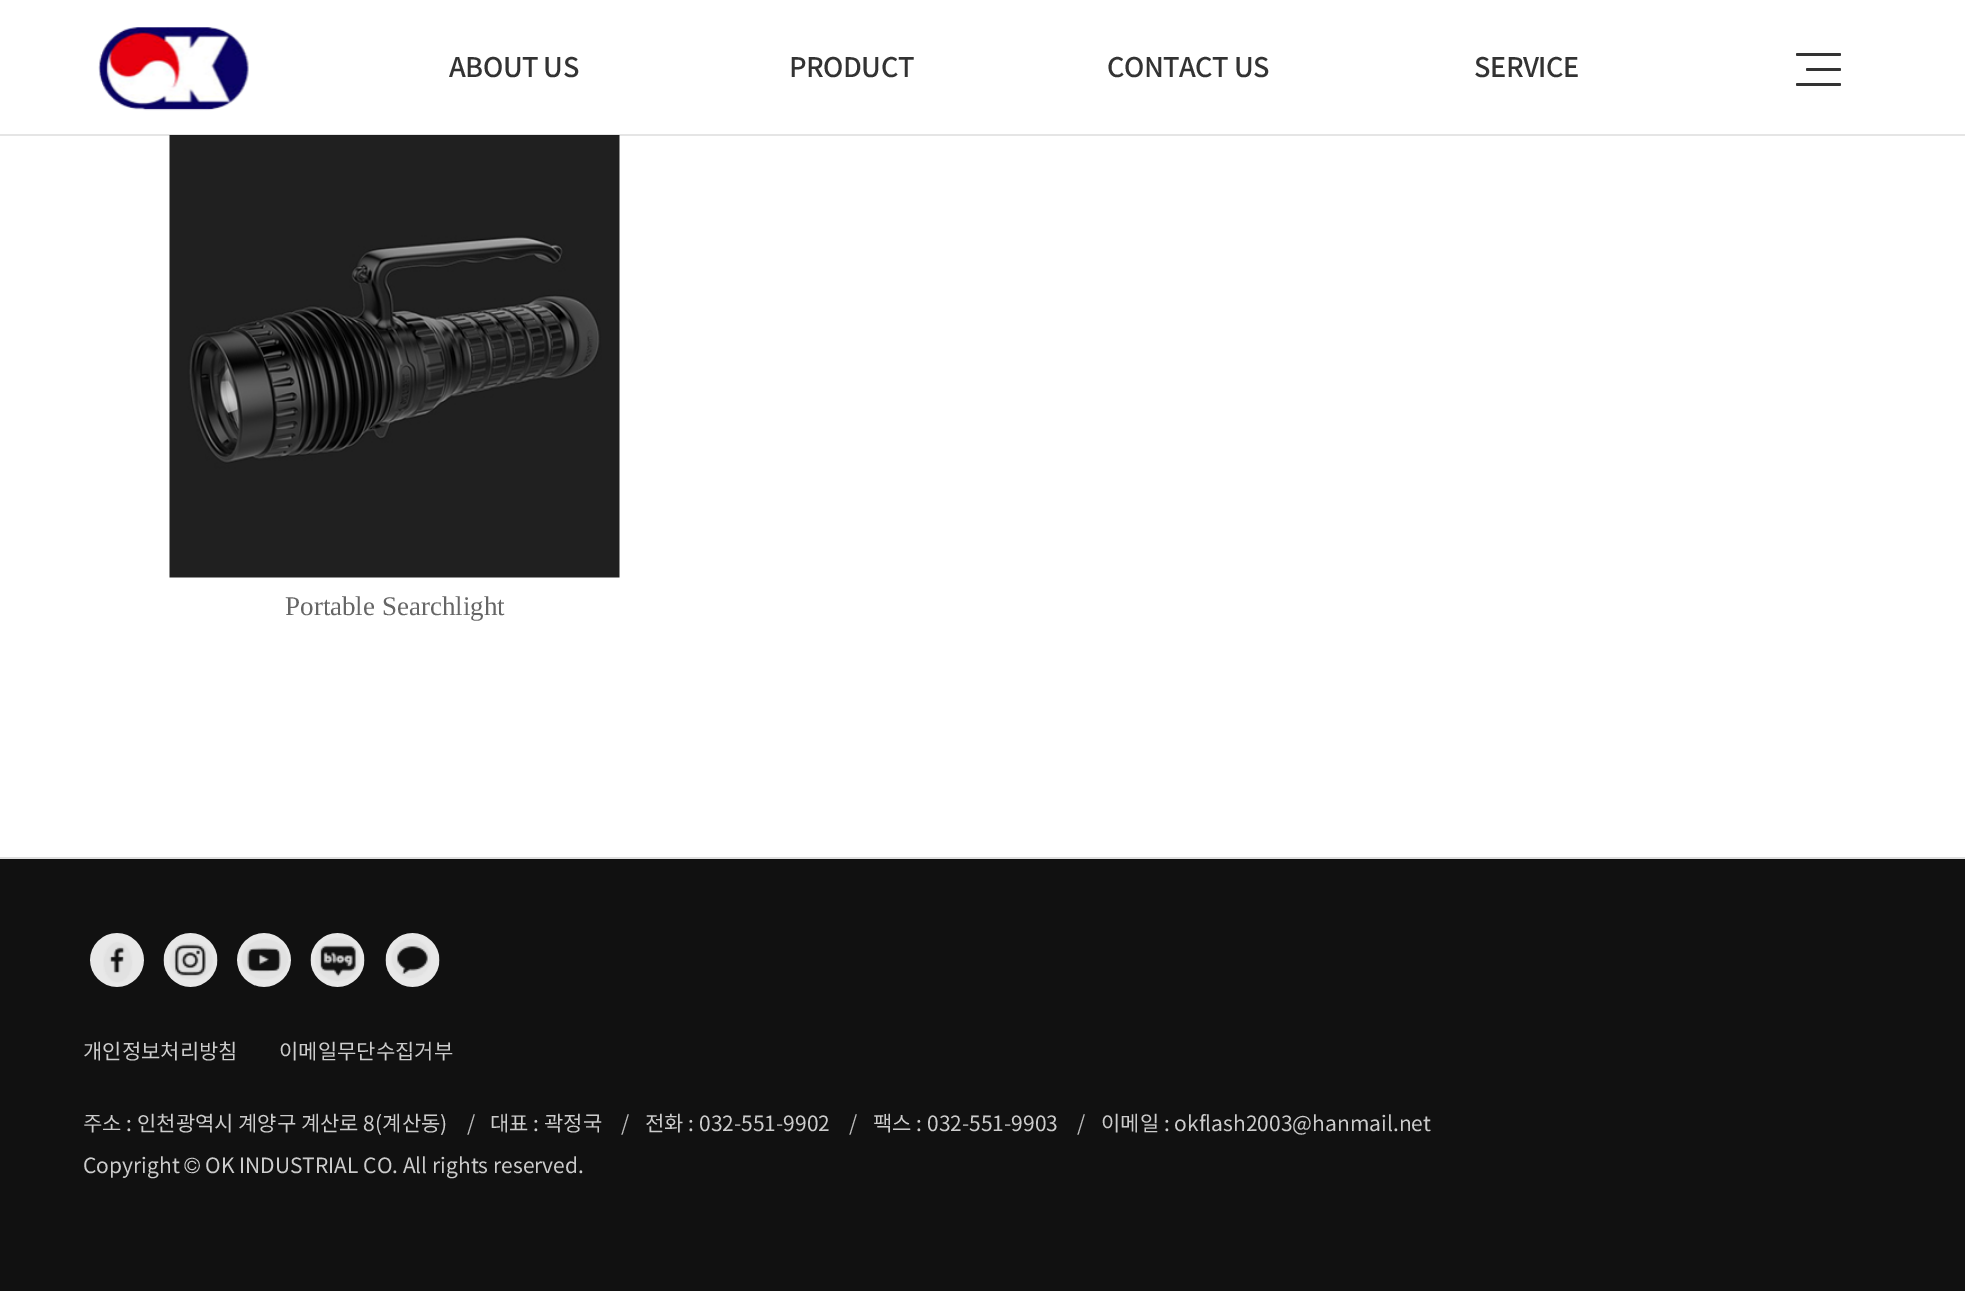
%!PS-Adobe-3.0
%%BoundingBox: 0 0 1965 1291
%%LanguageLevel: 3
%%Pages: 1
%%EndComments
%%BeginProlog
/setalpha { dup .setfillconstantalpha .setstrokeconstantalpha } def
/rrect { 5 dict begin { /r /h /w /y /x } { exch def } forall
  x r add y moveto x w add y 2 copy h add r arct x w add y h add x 1 index r arct
  x y h add x y r arct x y 2 copy exch w add exch r arct closepath end } def
/drawimage { 5 dict begin { /h /w /y /x /name } { exch def } forall
  gsave x y translate w h scale
  w h 8 [w 0 0 h 0 0] name (r) file false 3 colorimage grestore end } def
%%EndProlog
%%BeginSetup
<< /PageSize [1965 1291] /PageUsesTransparency true >> setpagedevice
%%EndSetup
%%Page: 1 1
0 .pushpdf14devicefilter
0 1291 translate 1 -1 scale
4 setmiterlimit
1 setgray
0 0 1965 1291 rectfill
(images/1.raw) 98 27 151 84 drawimage
0.2 setgray
1796 53 45 3 1.5 rrect fill
1806 68 35 3 1.5 rrect fill
1796 83 45 3 1.5 rrect fill
(images/2.raw) 169 135 451 443 drawimage
0.1 setalpha
0 setgray
0 134 1965 2 rectfill
1 setalpha
0.067 setgray
0 859 1965 432 rectfill
0.875 setgray
0 857 1965 2 rectfill
(images/3.raw) 90 933 54 54 drawimage
(images/4.raw) 163 933 55 54 drawimage
(images/5.raw) 237 933 54 54 drawimage
(images/6.raw) 310 933 55 54 drawimage
(images/7.raw) 385 933 55 54 drawimage
/NotoSansKR-Medium [27 0 0 -27 0 0] selectfont
0.2 setgray
449 77 moveto -0.5 0 (ABOUT US) ashow
789 77 moveto -0.5 0 (PRODUCT) ashow
1107 77 moveto -0.5 0 (CONTACT US) ashow
1474 77 moveto -0.5 0 (SERVICE) ashow
/LiberationSerif-Regular [27 0 0 -27 0 0] selectfont
0.4 setgray
285 615 moveto (Portable Searchlight) show
/NotoSansKR-Regular [21 0 0 -21 0 0] selectfont
0.8 setgray
83 1059 moveto (개인정보처리방침) show
279 1059 moveto (이메일무단수집거부) show
83 1131 moveto (주소 : 인천광역시 계양구 계산로 8\(계산동\)) show
0.733 setgray
467 1131 moveto (/) show
0.8 setgray
490 1131 moveto (대표 : 곽정국) show
0.733 setgray
621 1131 moveto (/) show
0.8 setgray
645 1131 moveto (전화 : 032-551-9902) show
0.733 setgray
849 1131 moveto (/) show
0.8 setgray
873 1131 moveto (팩스 : 032-551-9903) show
0.733 setgray
1077 1131 moveto (/) show
0.8 setgray
1101 1131 moveto (이메일 : okflash2003@hanmail.net) show
83 1173 moveto (Copyright) show
/Dotum-Regular [21 0 0 -21 0 0] selectfont
184 1173 moveto (©) show
/NotoSansKR-Regular [21 0 0 -21 0 0] selectfont
205 1173 moveto (OK INDUSTRIAL CO. All rights reserved.) show
.poppdf14devicefilter showpage
%%EOF
